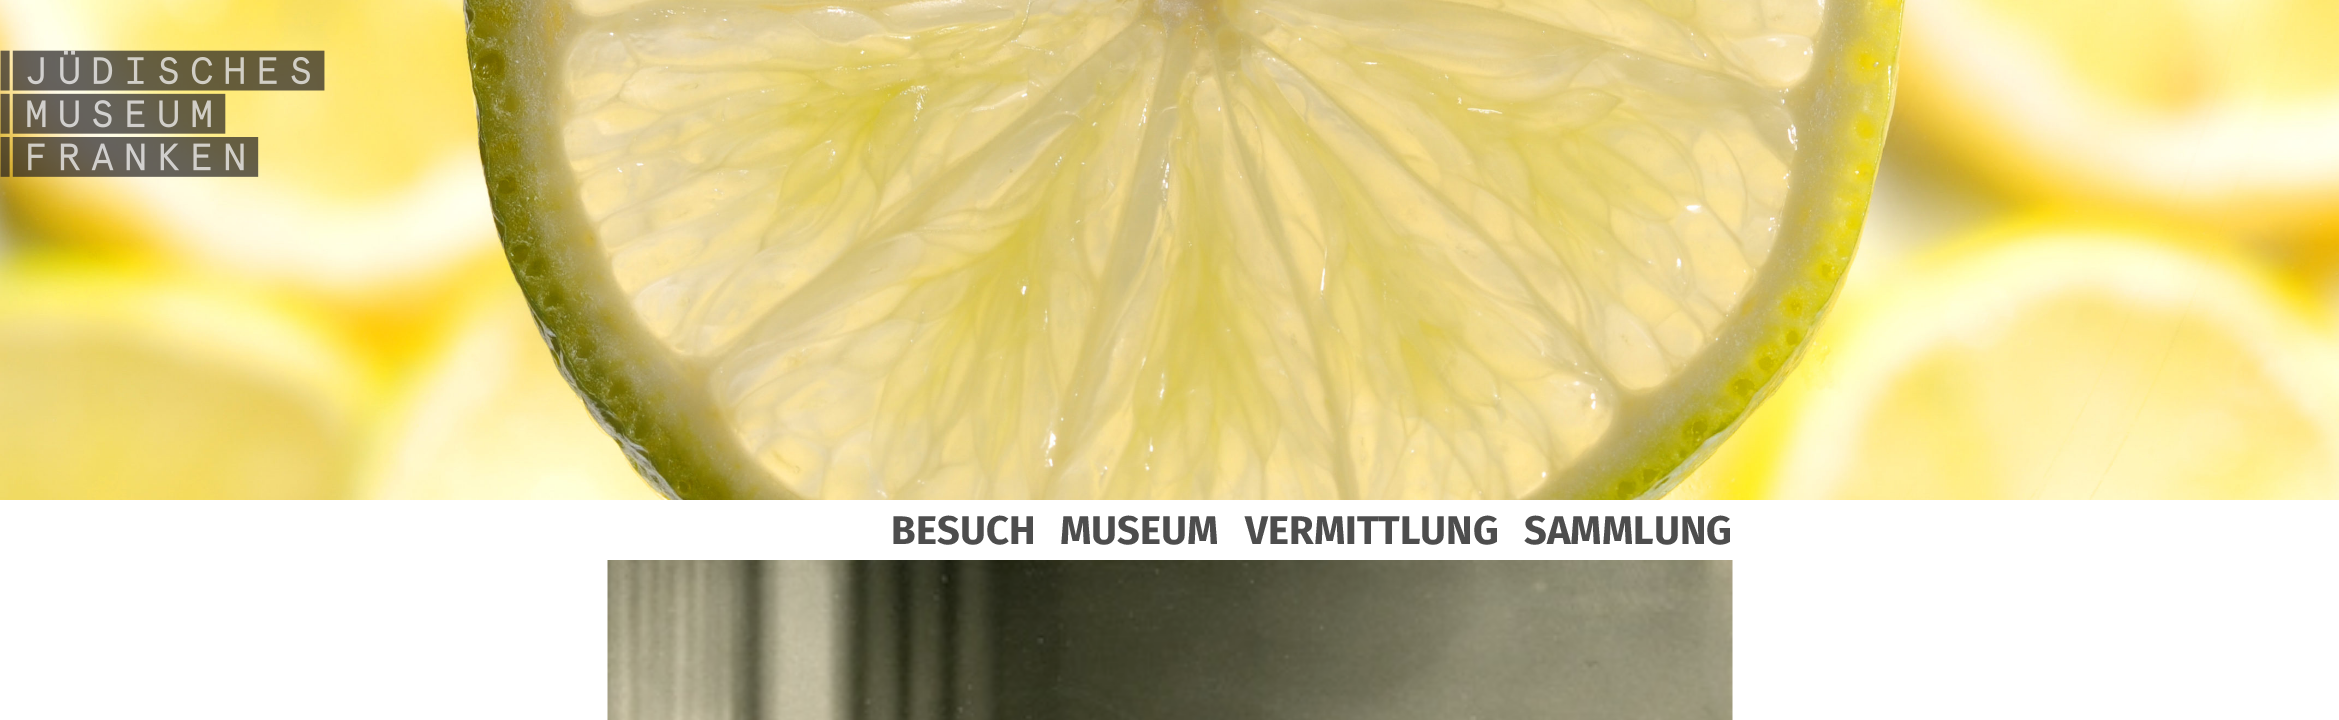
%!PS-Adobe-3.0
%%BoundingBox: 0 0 2339 720
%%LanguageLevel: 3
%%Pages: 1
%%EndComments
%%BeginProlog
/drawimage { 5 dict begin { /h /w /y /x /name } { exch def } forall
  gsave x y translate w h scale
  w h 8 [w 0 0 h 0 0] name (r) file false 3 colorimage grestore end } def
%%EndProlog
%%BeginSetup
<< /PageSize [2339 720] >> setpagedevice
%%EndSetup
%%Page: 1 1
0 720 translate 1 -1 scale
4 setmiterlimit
1 setgray
0 0 2339 720 rectfill
(images/1.raw) 0 0 2339 500 drawimage
(images/2.raw) 0 50 325 127 drawimage
(images/3.raw) 607 560 1126 160 drawimage
/FiraSans-Bold [40 0 0 -40 0 0] selectfont
0.302 setgray
891 544 moveto (BESUCH) show
1060 544 moveto (MUSEUM) show
1245 544 moveto (VERMITTLUNG) show
1524 544 moveto (SAMMLUNG) show
showpage
%%EOF
